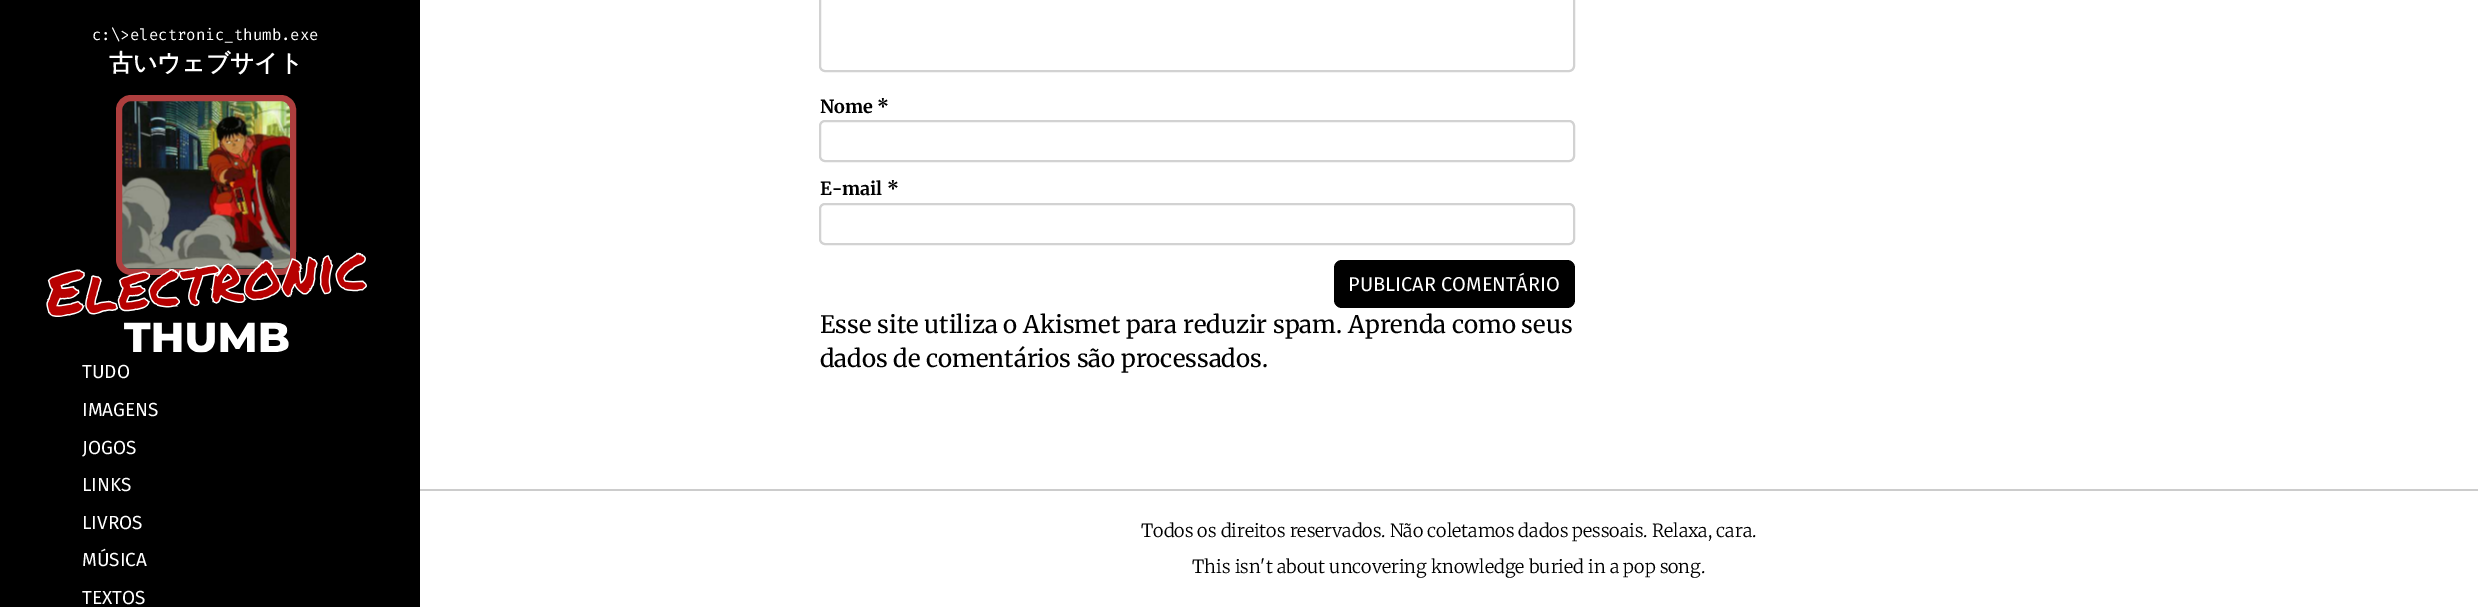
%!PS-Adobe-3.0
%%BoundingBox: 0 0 2478 607
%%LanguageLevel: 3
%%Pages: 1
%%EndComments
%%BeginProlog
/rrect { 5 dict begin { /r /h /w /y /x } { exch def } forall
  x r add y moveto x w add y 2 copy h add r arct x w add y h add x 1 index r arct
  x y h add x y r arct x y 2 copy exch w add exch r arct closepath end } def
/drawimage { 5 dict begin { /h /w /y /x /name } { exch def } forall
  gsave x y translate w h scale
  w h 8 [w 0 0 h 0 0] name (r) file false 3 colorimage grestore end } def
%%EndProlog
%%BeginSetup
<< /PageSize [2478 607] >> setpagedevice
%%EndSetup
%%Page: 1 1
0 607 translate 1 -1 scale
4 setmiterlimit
1 setgray
0 0 2478 607 rectfill
0 setgray
0 0 420 607 rectfill
(images/1.raw) 122 100 174 169 drawimage
0.682 0.243 0.243 setrgbcolor
6 setlinewidth
119 98 174 174 12 rrect stroke
(images/2.raw) 46 252 321 101 drawimage
0.824 setgray
2 setlinewidth
820 -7 754 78 5 rrect stroke
820 121 754 40 5 rrect stroke
820 204 754 40 5 rrect stroke
0 setgray
1334 260 241 48 8 rrect fill
0.8 setgray
420 489 2058 2 rectfill
/FiraCode-Regular [15.75 0 0 -15.75 0 0] selectfont
1 setgray
92 40 moveto (c:\\>electronic_thumb.exe) show
/WenQuanYiZenHei-Bold [23.75 0 0 -23.75 0 0] selectfont
109 71 moveto (古いウェブサイト) show
/FiraSans-Regular [19 0 0 -19 0 0] selectfont
82 378 moveto (TUDO) show
82 416 moveto (IMAGENS) show
82 454 moveto (JOGOS) show
82 491 moveto (LINKS) show
82 529 moveto (LIVROS) show
82 566 moveto (MÚSICA) show
82 604 moveto (TEXTOS) show
/Merriweather-Bold [18 0 0 -18 0 0] selectfont
0 setgray
820 113 moveto (Nome *) show
820 195 moveto (E-mail *) show
/FiraSans-Regular [20 0 0 -20 0 0] selectfont
1 setgray
1348 291 moveto (PUBLICAR COMENTÁRIO) show
/Merriweather-Regular [24 0 0 -24 0 0] selectfont
0 setgray
820 333 moveto (Esse site utiliza o Akismet para reduzir spam. Aprenda como seus) show
820 367 moveto (dados de comentários são processados.) show
/Merriweather-Light [18 0 0 -18 0 0] selectfont
1141 537 moveto (Todos os direitos reservados. Não coletamos dados pessoais. Relaxa, cara.) show
1192 573 moveto (This isn't about uncovering knowledge buried in a pop song.) show
showpage
%%EOF
